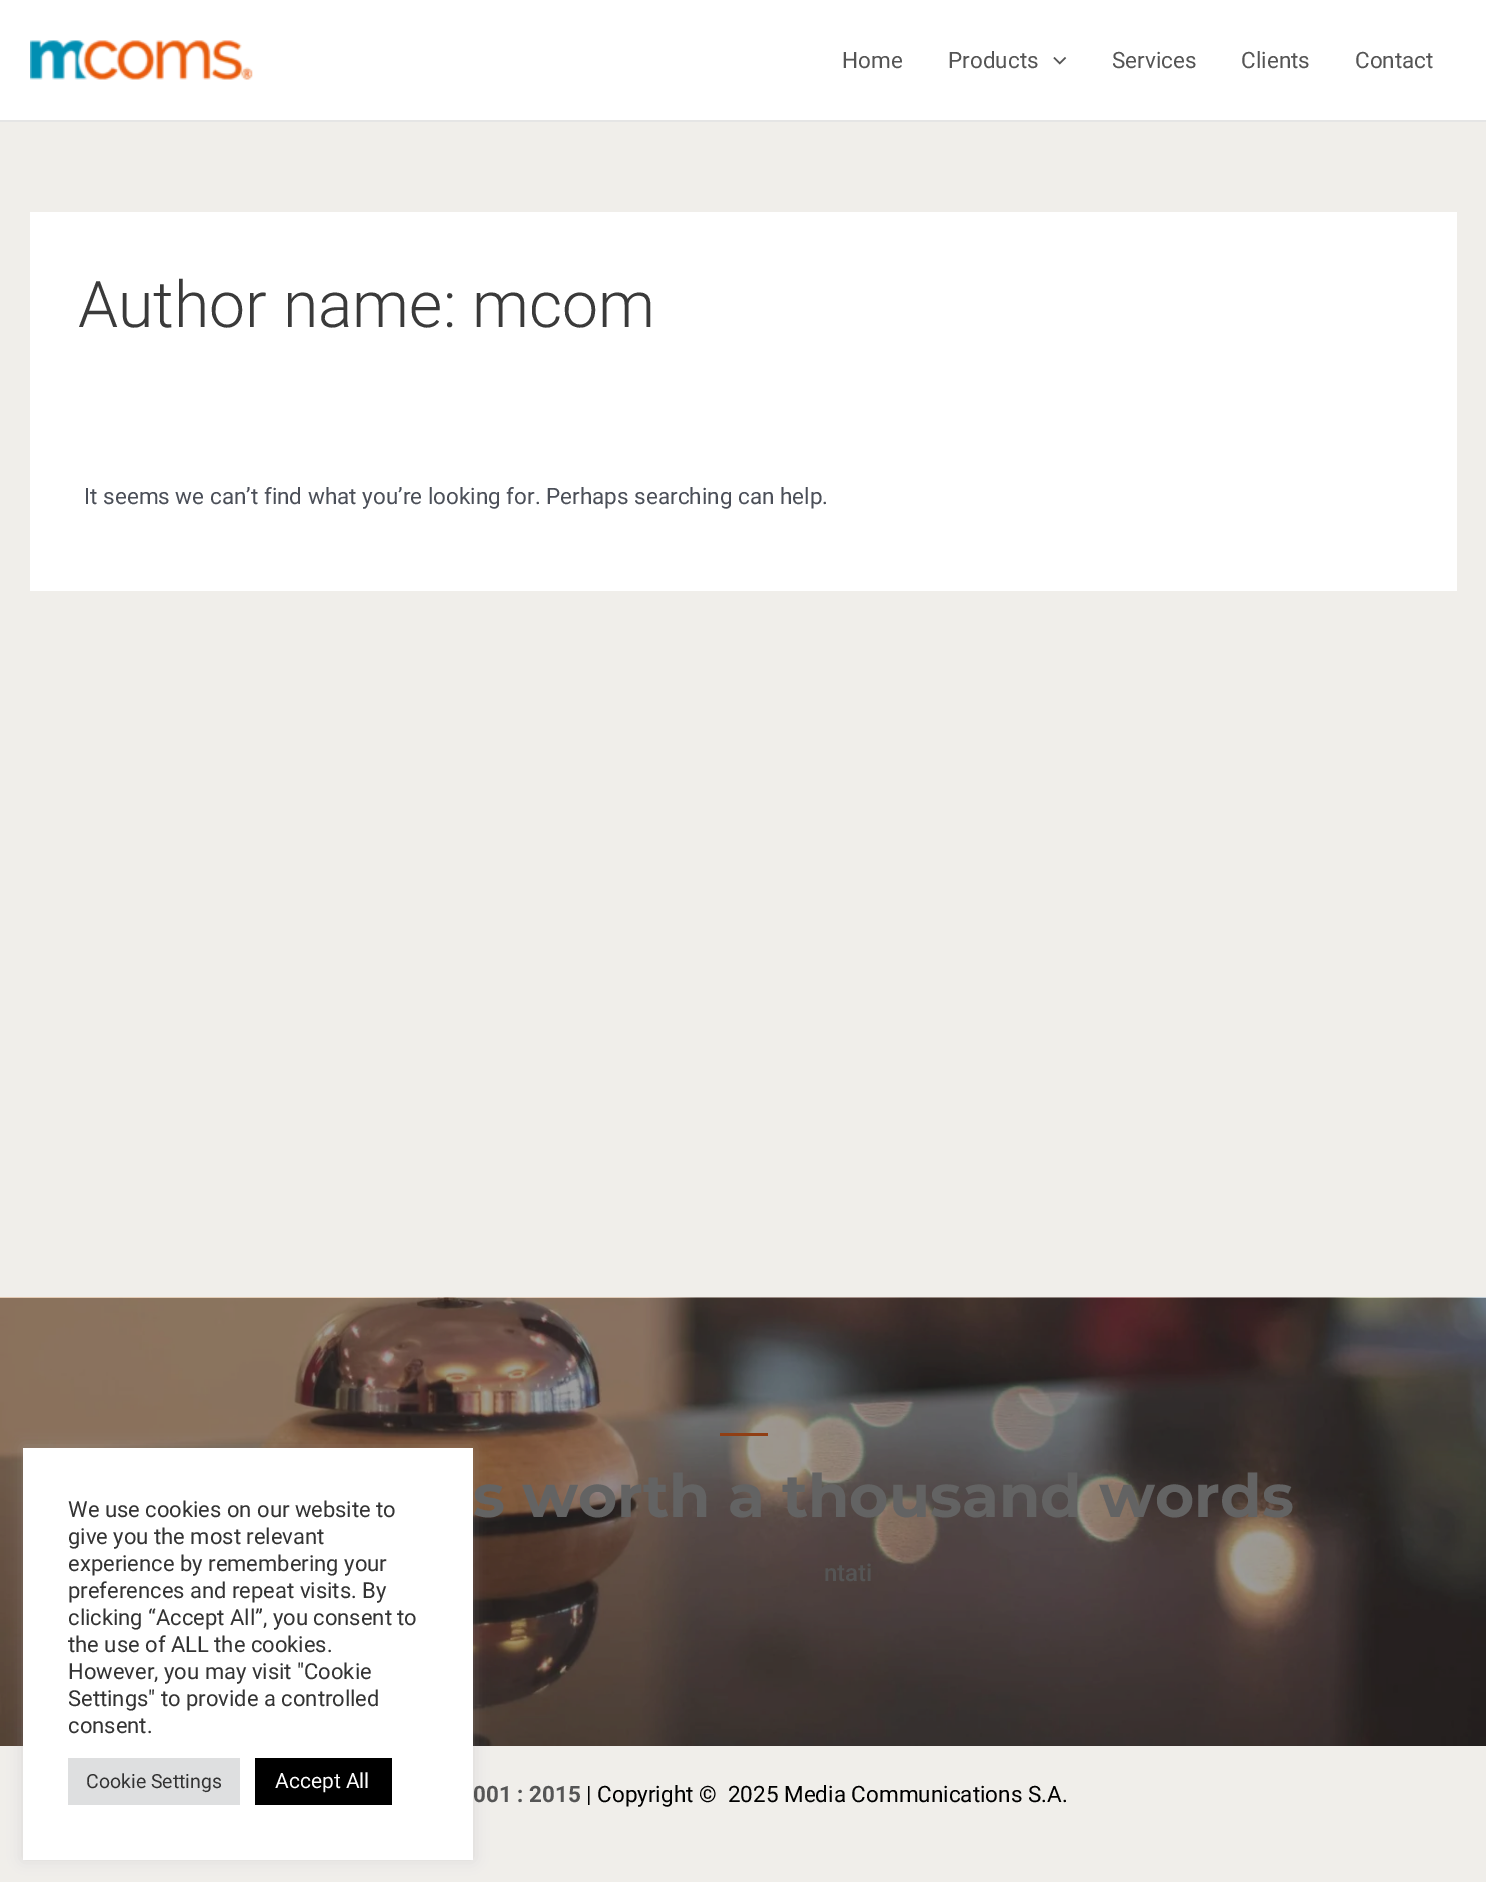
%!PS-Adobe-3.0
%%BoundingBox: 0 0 1486 1882
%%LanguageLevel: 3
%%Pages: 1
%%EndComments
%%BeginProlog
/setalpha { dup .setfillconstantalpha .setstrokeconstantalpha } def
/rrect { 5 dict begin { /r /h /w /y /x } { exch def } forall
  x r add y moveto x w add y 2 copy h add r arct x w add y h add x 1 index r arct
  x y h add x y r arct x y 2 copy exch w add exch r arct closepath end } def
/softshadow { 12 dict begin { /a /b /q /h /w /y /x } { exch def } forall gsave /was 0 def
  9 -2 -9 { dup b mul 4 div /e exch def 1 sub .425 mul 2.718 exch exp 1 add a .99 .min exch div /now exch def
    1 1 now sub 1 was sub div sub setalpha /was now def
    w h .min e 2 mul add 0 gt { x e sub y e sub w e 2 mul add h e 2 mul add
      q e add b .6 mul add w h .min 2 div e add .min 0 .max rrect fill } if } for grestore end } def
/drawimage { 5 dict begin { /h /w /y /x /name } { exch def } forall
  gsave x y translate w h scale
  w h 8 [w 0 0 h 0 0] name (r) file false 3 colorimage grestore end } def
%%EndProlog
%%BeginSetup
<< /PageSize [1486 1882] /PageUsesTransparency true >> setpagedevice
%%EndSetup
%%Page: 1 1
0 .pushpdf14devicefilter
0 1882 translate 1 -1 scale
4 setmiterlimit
0.941 0.933 0.918 setrgbcolor
0 0 1486 1882 rectfill
1 setgray
0 0 1486 120 rectfill
0.898 setgray
0 120 1486 2 rectfill
(images/1.raw) 30 40 223 40 drawimage
(images/2.raw) 1053 57 14 8 drawimage
1 setgray
30 212 1427 379 rectfill
(images/3.raw) 0 1297 1486 449 drawimage
0.565 0.247 0.078 setrgbcolor
720 1433 48 3 rectfill
0.675 0.671 0.671 setrgbcolor
23 1446 450 413 0 7.5 0.3 softshadow
1 setgray
23 1448 450 412 rectfill
0.871 0.875 0.878 setrgbcolor
68 1758 172 47 rectfill
0 setgray
255 1758 137 47 rectfill
/Roboto-Regular [22.5 0 0 -22.5 0 0] selectfont
0.333 setgray
842 68 moveto (Home) show
948 68 moveto (Products) show
1112 68 moveto (Services) show
1241 68 moveto (Clients) show
1355 68 moveto (Contact) show
/Roboto-Light [64.25 0 0 -64.25 0 0] selectfont
0.227 setgray
78 327 moveto (Author name: mcom) show
/Roboto-Regular [22.5 0 0 -22.5 0 0] selectfont
0.294 0.31 0.345 setrgbcolor
84 504 moveto (It seems we can’t find what you’re looking for. Perhaps searching can help.) show
/Montserrat-Bold [60 0 0 -60 0 0] selectfont
0.388 setgray
473 1517 moveto (s worth a thousand words) show
/Roboto-Medium [24 0 0 -24 0 0] selectfont
0.333 setgray
824 1581 moveto (ntati) show
/Roboto-Bold [22.5 0 0 -22.5 0 0] selectfont
473 1802 moveto (001 : 2015) show
/Roboto-Regular [22.5 0 0 -22.5 0 0] selectfont
0 setgray
586 1802 moveto (| Copyright ©  2025 Media Communications S.A.) show
/Roboto-Regular [22 0 0 -22 0 0] selectfont
0.2 setgray
68 1517 moveto (We use cookies on our website to) show
68 1544 moveto (give you the most relevant) show
68 1571 moveto (experience by remembering your) show
68 1598 moveto (preferences and repeat visits. By) show
68 1625 moveto (clicking “Accept All”, you consent to) show
68 1652 moveto (the use of ALL the cookies.) show
68 1679 moveto (However, you may visit "Cookie) show
68 1706 moveto (Settings" to provide a controlled) show
68 1733 moveto (consent.) show
/Roboto-Regular [19.5 0 0 -19.5 0 0] selectfont
86 1788 moveto (Cookie Settings) show
/Roboto-Regular [21 0 0 -21 0 0] selectfont
1 setgray
275 1788 moveto (Accept All) show
.poppdf14devicefilter showpage
%%EOF
